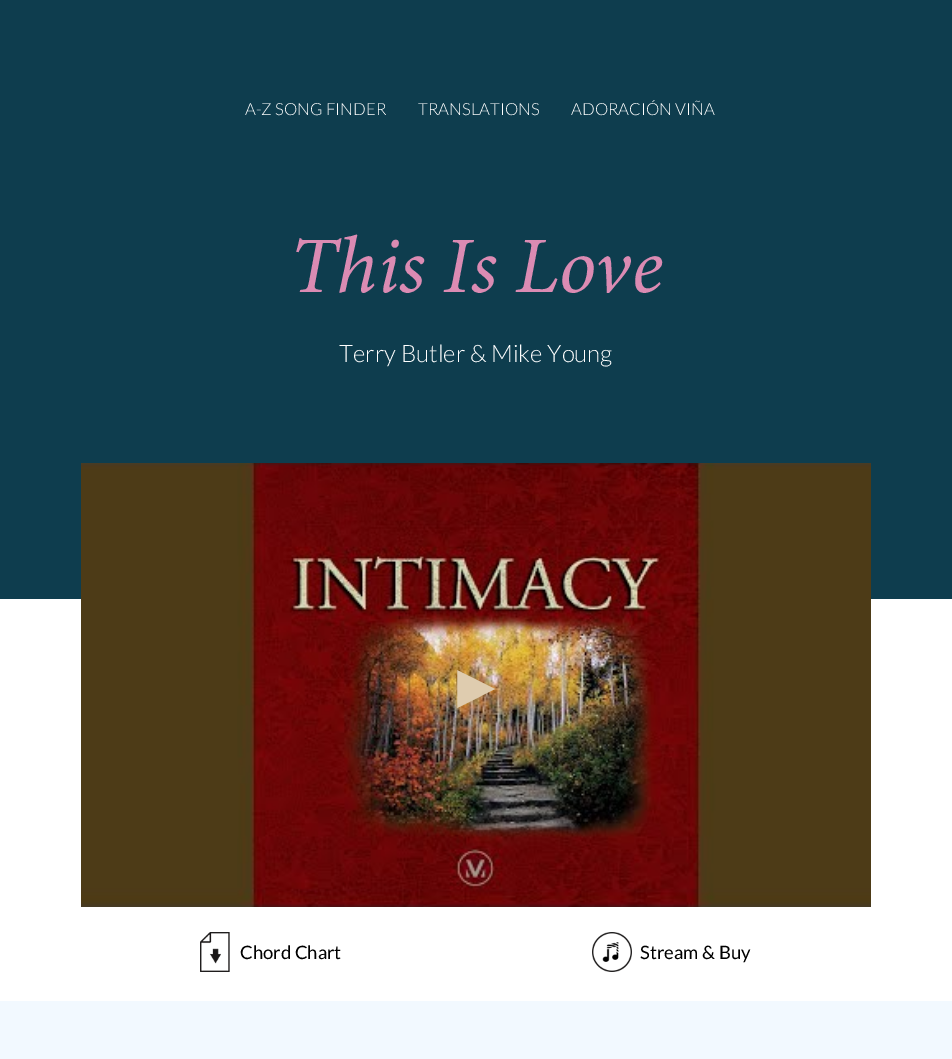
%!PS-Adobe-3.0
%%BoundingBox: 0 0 952 1059
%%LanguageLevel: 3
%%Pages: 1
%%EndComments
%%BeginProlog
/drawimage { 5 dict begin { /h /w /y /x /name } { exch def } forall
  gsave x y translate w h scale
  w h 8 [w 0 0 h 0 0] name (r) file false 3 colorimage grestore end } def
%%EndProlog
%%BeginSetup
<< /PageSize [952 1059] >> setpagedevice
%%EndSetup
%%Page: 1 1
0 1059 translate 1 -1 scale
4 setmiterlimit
0.055 0.239 0.306 setrgbcolor
0 0 952 1059 rectfill
1 setgray
0 599 952 402 rectfill
(images/1.raw) 81 463 790 444 drawimage
(images/2.raw) 200 932 30 40 drawimage
(images/3.raw) 592 932 40 40 drawimage
0.949 0.976 1 setrgbcolor
0 1001 952 58 rectfill
/Lato-Light [16.75 0 0 -16.75 0 0] selectfont
1 setgray
245 115 moveto (A-Z SONG FINDER) show
418 115 moveto (TRANSLATIONS) show
571 115 moveto (ADORACIÓN VIÑA) show
/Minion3-Italic [80 0 0 -80 0 0] selectfont
0.859 0.545 0.702 setrgbcolor
290 292 moveto (This Is Love) show
/Lato-Light [24 0 0 -24 0 0] selectfont
1 setgray
339 362 moveto (Terry Butler & Mike Young) show
/DejaVuSans-Regular [50 0 0 -50 0 0] selectfont
0.875 0.8 0.686 setrgbcolor
457 702 moveto (▶) show
/Lato-Regular [18.5 0 0 -18.5 0 0] selectfont
0 setgray
240 959 moveto (Chord Chart) show
640 959 moveto (Stream & Buy) show
showpage
%%EOF
